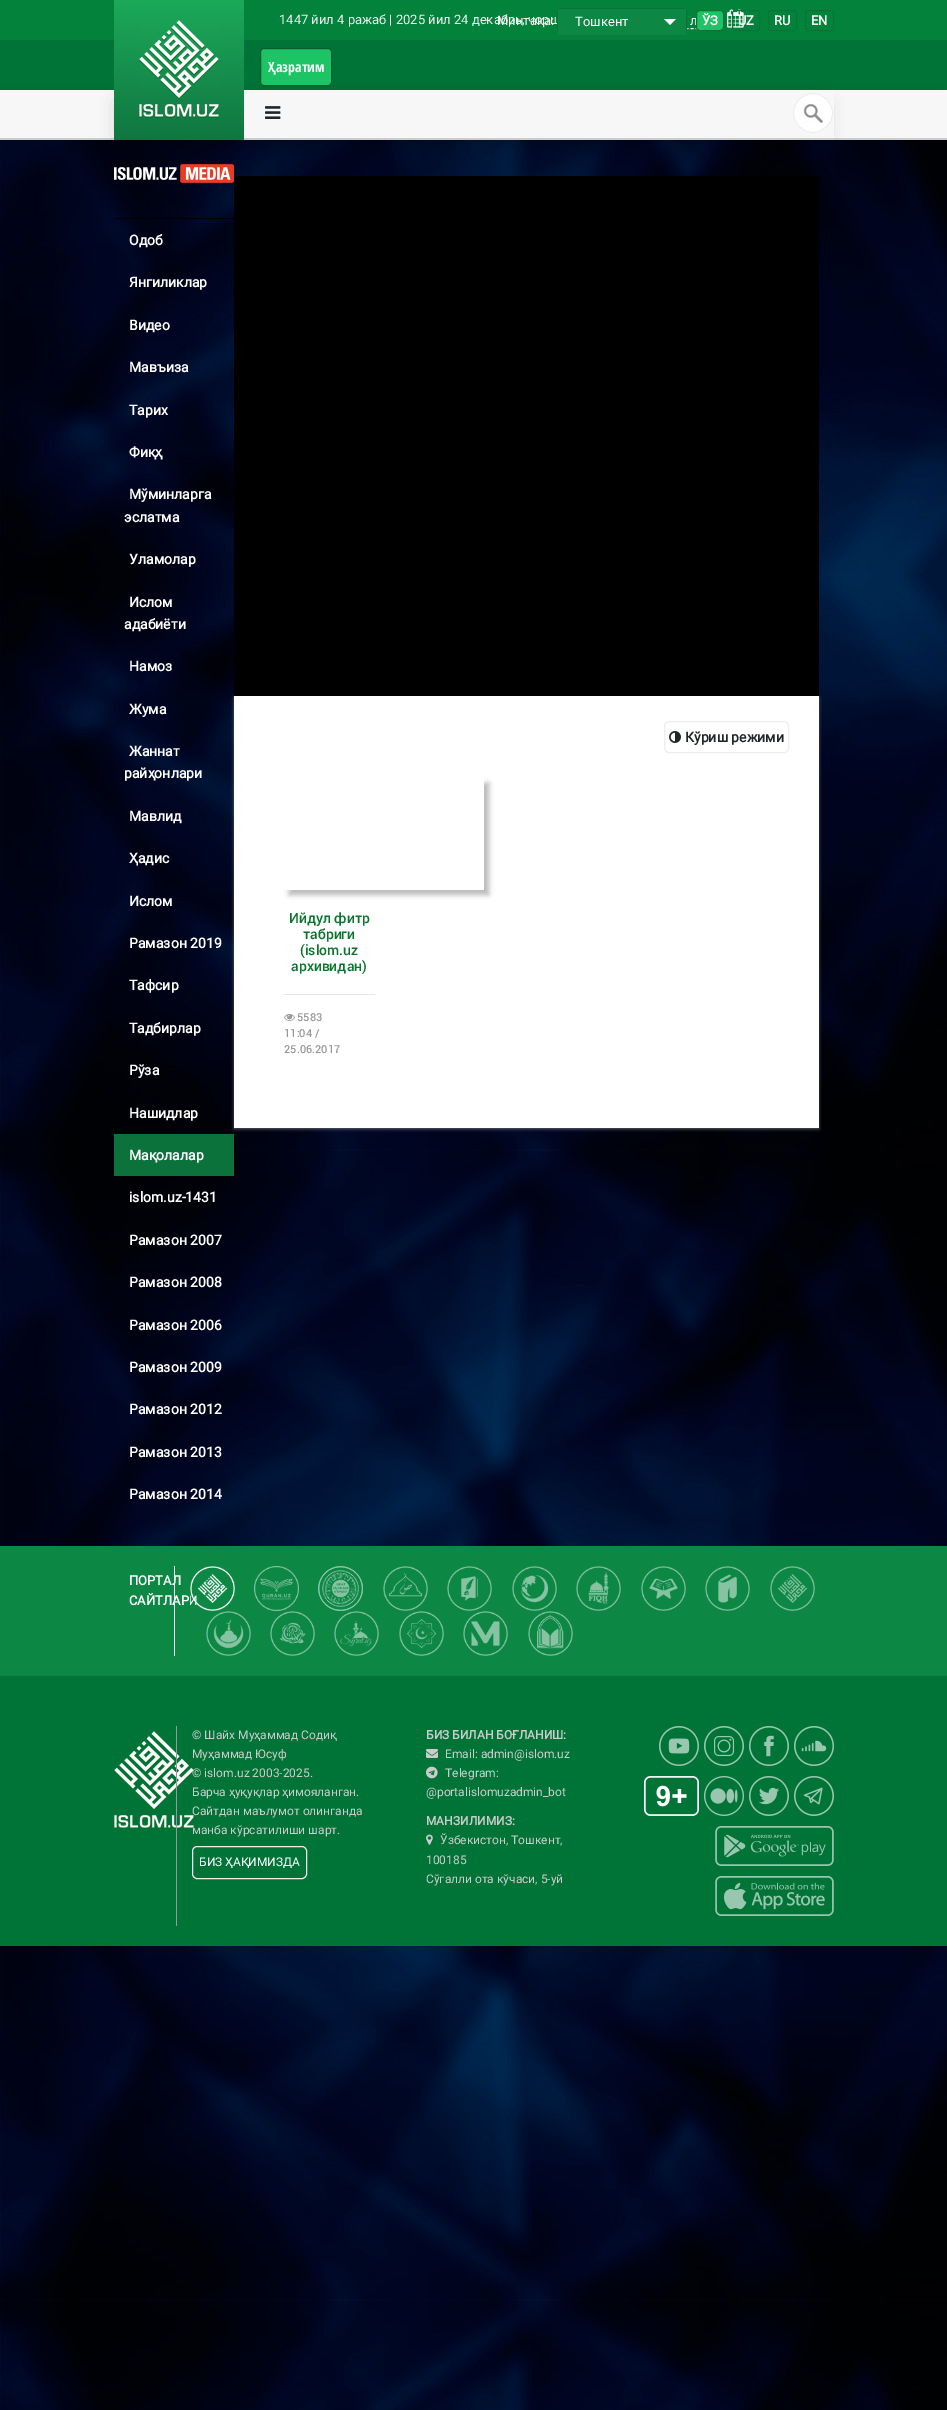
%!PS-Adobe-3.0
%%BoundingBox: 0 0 947 2410
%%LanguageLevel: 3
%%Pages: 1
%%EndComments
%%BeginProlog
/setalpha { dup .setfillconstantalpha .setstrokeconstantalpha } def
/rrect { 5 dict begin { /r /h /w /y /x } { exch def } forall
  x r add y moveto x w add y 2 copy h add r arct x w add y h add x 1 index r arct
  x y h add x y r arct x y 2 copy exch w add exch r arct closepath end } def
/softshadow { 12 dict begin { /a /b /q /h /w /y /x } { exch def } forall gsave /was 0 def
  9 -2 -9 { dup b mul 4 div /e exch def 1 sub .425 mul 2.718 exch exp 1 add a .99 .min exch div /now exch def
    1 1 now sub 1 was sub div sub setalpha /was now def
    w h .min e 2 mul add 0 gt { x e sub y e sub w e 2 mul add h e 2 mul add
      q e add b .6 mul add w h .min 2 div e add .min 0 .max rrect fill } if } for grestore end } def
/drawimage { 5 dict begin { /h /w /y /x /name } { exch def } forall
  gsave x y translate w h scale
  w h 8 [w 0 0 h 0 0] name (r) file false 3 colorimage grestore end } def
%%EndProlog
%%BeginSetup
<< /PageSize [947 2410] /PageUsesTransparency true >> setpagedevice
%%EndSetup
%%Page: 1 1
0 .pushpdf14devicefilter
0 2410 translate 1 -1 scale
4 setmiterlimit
1 setgray
0 0 947 2410 rectfill
(images/1.raw) 0 140 947 2270 drawimage
0.008 0.51 0.231 setrgbcolor
0 0 947 40 rectfill
(images/2.raw) 727 9 17 19 drawimage
0.043 0.447 0.231 setrgbcolor
732.5 10.5 27 20 2.5 rrect stroke
768.5 10.5 28 20 2.5 rrect stroke
805.5 10.5 28 20 2.5 rrect stroke
0.933 setgray
[3 2.11] 0 setdash
newpath 619 28.5 moveto 719 28.5 lineto stroke
0 0.451 0.212 setrgbcolor
0 40 947 50 rectfill
(images/6.raw) 114 164 120 19 drawimage
0 setgray
7 104 929 32 0 10 0.28 softshadow
0.969 setgray
0 90 947 48 rectfill
0.8 setgray
0 138 947 2 rectfill
0 setgray
121 104 702 32 0 10 0.28 softshadow
gsave newpath 114 0 moveto 244 0 lineto 244 140 lineto 114 140 lineto closepath clip newpath
<< /ShadingType 2 /ColorSpace /DeviceRGB /Coords [179 0 179 140] /Extend [true true] /Function << /FunctionType 2 /Domain [0 1] /C0 [0.11 0.663 0.353] /C1 [0.063 0.463 0.251] /N 1 >> >> shfill grestore
(images/3.raw) 139 20 80 98 drawimage
0.11 0.769 0.396 setrgbcolor
260.5 48.5 71 37 3.5 rrect gsave fill grestore
0.035 0.369 0.188 setrgbcolor
[] 0 setdash
stroke
0.969 setgray
244 90 590 48 rectfill
0.8 setgray
244 138 590 2 rectfill
(images/4.raw) 265 106 16 13 drawimage
1 setgray
newpath 813 113 20 0 360 arc closepath fill
(images/5.raw) 803 103 20 20 drawimage
0.933 setgray
newpath 813 113 19.5 0 360 arc closepath stroke
0 setgray
114 218 120 1 rectfill
0.043 0.447 0.231 setrgbcolor
114 1134 120 42 rectfill
0.706 setgray
234 697 585 432 0 1.5 0.5 softshadow
0 setgray
234 176 585 520 rectfill
1 setgray
234 696 585 432 rectfill
0.933 setgray
664.5 721.5 124 31 4.5 rrect stroke
(images/7.raw) 669 731 12 12 drawimage
gsave
newpath 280 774 moveto 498 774 lineto 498 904 lineto 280 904 lineto closepath 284 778 moveto 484 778 lineto 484 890 lineto 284 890 lineto closepath eoclip newpath
0 setgray
289 783 200 112 0 2.5 0.26 softshadow
grestore
0.902 setgray
284 994 91 1 rectfill
(images/8.raw) 284 1014 11 7 drawimage
0.047 0.529 0.267 setrgbcolor
0 1546 947 130 rectfill
(images/10.raw) 254 1566 45 45 drawimage
(images/11.raw) 318 1566 45 45 drawimage
(images/12.raw) 383 1566 45 45 drawimage
(images/13.raw) 447 1566 45 45 drawimage
(images/14.raw) 512 1566 45 45 drawimage
(images/15.raw) 576 1566 45 45 drawimage
(images/16.raw) 641 1566 45 45 drawimage
(images/17.raw) 705 1566 45 45 drawimage
(images/18.raw) 770 1566 45 45 drawimage
(images/19.raw) 206 1611 45 45 drawimage
(images/20.raw) 270 1611 45 45 drawimage
(images/21.raw) 334 1611 45 45 drawimage
(images/22.raw) 399 1611 45 45 drawimage
(images/23.raw) 463 1611 45 45 drawimage
(images/24.raw) 528 1611 45 45 drawimage
0 0.451 0.212 setrgbcolor
0 1676 947 270 rectfill
(images/25.raw) 114 1731 80 98 drawimage
0.6 setgray
176 1726 1 200 rectfill
0.933 setgray
192.5 1846.5 114 32 4.5 rrect stroke
(images/26.raw) 426 1749 12 9 drawimage
(images/27.raw) 426 1766 12 13 drawimage
(images/28.raw) 426 1834 7 11 drawimage
(images/29.raw) 659 1726 40 40 drawimage
(images/30.raw) 704 1726 40 40 drawimage
(images/31.raw) 749 1726 40 40 drawimage
(images/32.raw) 794 1726 40 40 drawimage
(images/33.raw) 644 1776 55 40 drawimage
(images/34.raw) 715 1826 119 40 drawimage
(images/35.raw) 715 1876 119 40 drawimage
(images/36.raw) 704 1776 40 40 drawimage
(images/37.raw) 749 1776 40 40 drawimage
(images/38.raw) 794 1776 40 40 drawimage
/Roboto-Regular [13 0 0 -13 0 0] selectfont
279 24 moveto (1447 йил 4 ражаб | 2025 йил 24 декабрь, чорш) show
497 25 moveto (Минтақа:) show
0.043 0.447 0.231 setrgbcolor
557.5 8.5 129 24 3.5 rrect stroke
0.047 0.529 0.267 setrgbcolor
558 9 128 27 rectfill
0.043 0.478 0.239 setrgbcolor
newpath 686 36 moveto 558 36 lineto 559 35 lineto 685 35 lineto closepath fill
1 setgray
575 26 moveto (Тошкент) show
newpath 664 19 moveto 676 19 lineto 670 25 lineto closepath fill
/Roboto-Bold [13 0 0 -13 0 0] selectfont
738 25 moveto (UZ) show
774 25 moveto (RU) show
811 25 moveto (EN) show
/Roboto-Regular [13 0 0 -13 0 0] selectfont
690 25 moveto (л) show
0.11 0.769 0.396 setrgbcolor
696.5 10.5 27 20 3.5 rrect gsave fill grestore
0.043 0.447 0.231 setrgbcolor
stroke
/Roboto-Bold [13 0 0 -13 0 0] selectfont
1 setgray
702 25 moveto (ЎЗ) show
/OpenSansCondensed-Bold [14 0 0 -14 0 0] selectfont
268 72 moveto (Ҳазратим) show
/Roboto-Bold [14 0 0 -14 0 0] selectfont
129 245 moveto (Одоб) show
129 287 moveto (Янгиликлар) show
129 330 moveto (Видео) show
129 372 moveto (Мавъиза) show
129 415 moveto (Тарих) show
129 457 moveto (Фиқҳ) show
129 499 moveto (Мўминларга) show
124 522 moveto (эслатма) show
129 564 moveto (Уламолар) show
129 607 moveto (Ислом) show
124 629 moveto (адабиёти) show
129 671 moveto (Намоз) show
129 714 moveto (Жума) show
129 756 moveto (Жаннат) show
124 778 moveto (райҳонлари) show
129 821 moveto (Мавлид) show
129 863 moveto (Ҳадис) show
129 906 moveto (Ислом) show
129 948 moveto (Рамазон 2019) show
129 990 moveto (Тафсир) show
129 1033 moveto (Тадбирлар) show
129 1075 moveto (Рўза) show
129 1118 moveto (Нашидлар) show
129 1160 moveto (Мақолалар) show
129 1202 moveto (islom.uz-1431) show
129 1245 moveto (Рамазон 2007) show
129 1287 moveto (Рамазон 2008) show
129 1330 moveto (Рамазон 2006) show
129 1372 moveto (Рамазон 2009) show
129 1414 moveto (Рамазон 2012) show
129 1457 moveto (Рамазон 2013) show
129 1499 moveto (Рамазон 2014) show
0.129 0.145 0.161 setrgbcolor
685 742 moveto (Кўриш режими) show
/Roboto-Medium [14 0 0 -14 0 0] selectfont
0.031 0.463 0.176 setrgbcolor
289 923 moveto (Ийдул фитр) show
303 939 moveto (табриги) show
300 955 moveto (\(islom.uz) show
291 971 moveto (архивидан\)) show
/Roboto-Medium [11 0 0 -11 0 0] selectfont
0.6 setgray
297 1021 moveto (5583) show
284 1037 moveto (11:04 /) show
284 1053 moveto (25.06.2017) show
/Roboto-Bold [13 0 0 -13 0 0] selectfont
1 setgray
129 1585 moveto (ПОРТАЛ) show
129 1605 moveto (САЙТЛАРИ) show
0.933 setgray
174 1566 1 90 rectfill
(images/9.raw) 190 1566 45 45 drawimage
/Roboto-Regular [12 0 0 -12 0 0] selectfont
0.8 setgray
192 1739 moveto (© Шайх Муҳаммад Содиқ) show
192 1758 moveto (Муҳаммад Юсуф) show
192 1777 moveto (© islom.uz 2003-2025.) show
192 1796 moveto (Барча ҳуқуқлар ҳимояланган.) show
192 1815 moveto (Сайтдан маълумот олинганда) show
192 1834 moveto (манба кўрсатилиши шарт.) show
1 setgray
199 1866 moveto (БИЗ ҲАҚИМИЗДА) show
/Roboto-Bold [12 0 0 -12 0 0] selectfont
0.8 setgray
426 1739 moveto (БИЗ БИЛАН БОҒЛАНИШ:) show
/Roboto-Regular [12 0 0 -12 0 0] selectfont
445 1758 moveto (Email: admin@islom.uz) show
445 1777 moveto (Telegram:) show
426 1796 moveto (@portalislomuzadmin_bot) show
/Roboto-Bold [12 0 0 -12 0 0] selectfont
426 1825 moveto (МАНЗИЛИМИЗ:) show
/Roboto-Regular [12 0 0 -12 0 0] selectfont
440 1844 moveto (Ўзбекистон, Тошкент,) show
426 1864 moveto (100185) show
426 1883 moveto (Сўгалли ота кўчаси, 5-уй) show
.poppdf14devicefilter showpage
%%EOF
